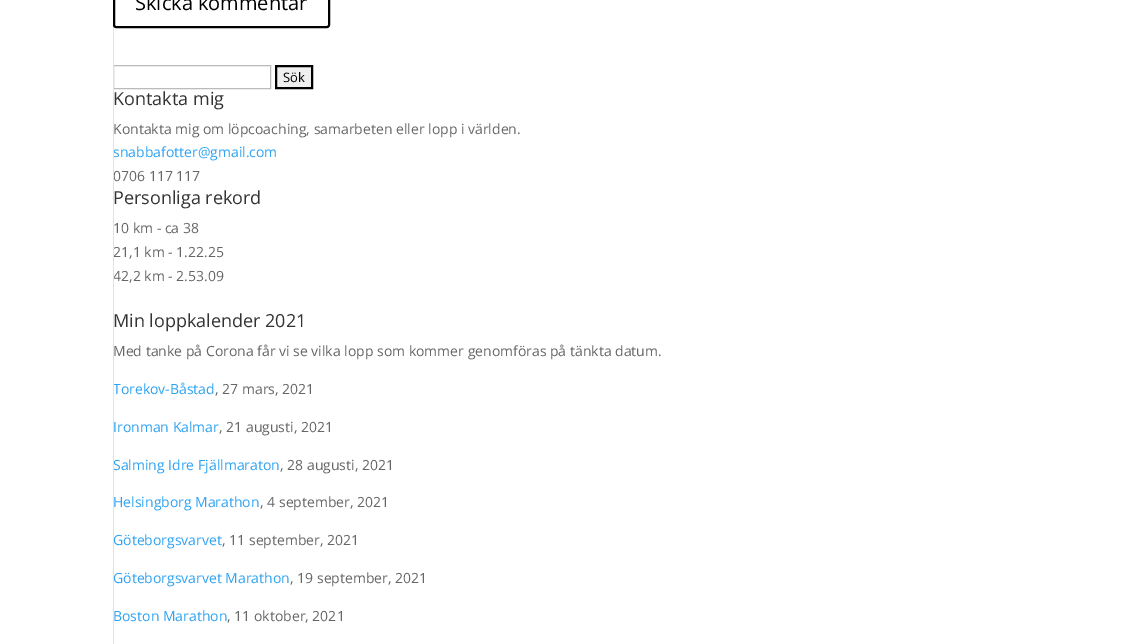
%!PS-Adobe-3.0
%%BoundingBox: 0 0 1132 644
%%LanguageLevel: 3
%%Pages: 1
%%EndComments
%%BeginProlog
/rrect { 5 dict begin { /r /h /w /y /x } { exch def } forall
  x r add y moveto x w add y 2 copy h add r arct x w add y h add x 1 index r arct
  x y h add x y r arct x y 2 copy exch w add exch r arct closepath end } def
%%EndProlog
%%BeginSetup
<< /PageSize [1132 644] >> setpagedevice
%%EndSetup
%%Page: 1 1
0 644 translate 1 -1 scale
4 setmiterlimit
1 setgray
0 0 1132 644 rectfill
0.733 setgray
113.5 65.5 157 23 rectstroke
0.937 setgray
newpath 276 66 moveto 312 66 lineto 312 88 lineto 276 88 lineto closepath gsave fill grestore
0 setgray
2 setlinewidth
stroke
/OpenSans-Regular [13 0 0 -13 0 0] selectfont
283 82 moveto (Sök) show
/OpenSans-Regular [18 0 0 -18 0 0] selectfont
0.2 setgray
113 105 moveto (Kontakta mig) show
/OpenSans-Regular [14 0 0 -14 0 0] selectfont
0.4 setgray
113 134 moveto (Kontakta mig om löpcoaching, samarbeten eller lopp i världen.) show
0.18 0.639 0.949 setrgbcolor
113 157 moveto (snabbafotter@gmail.com) show
0.4 setgray
113 181 moveto (0706 117 117) show
/OpenSans-Regular [18 0 0 -18 0 0] selectfont
0.2 setgray
113 204 moveto (Personliga rekord) show
/OpenSans-Regular [14 0 0 -14 0 0] selectfont
0.4 setgray
113 233 moveto (10 km - ca 38) show
113 257 moveto (21,1 km - 1.22.25) show
113 281 moveto (42,2 km - 2.53.09) show
/OpenSans-Regular [18 0 0 -18 0 0] selectfont
0.2 setgray
113 327 moveto (Min loppkalender 2021) show
/OpenSans-Regular [14 0 0 -14 0 0] selectfont
0.4 setgray
113 356 moveto (Med tanke på Corona får vi se vilka lopp som kommer genomföras på tänkta datum.) show
0.18 0.639 0.949 setrgbcolor
113 394 moveto (Torekov-Båstad) show
0.4 setgray
215 394 moveto (, 27 mars, 2021) show
0.18 0.639 0.949 setrgbcolor
113 432 moveto (Ironman Kalmar) show
0.4 setgray
219 432 moveto (, 21 augusti, 2021) show
0.18 0.639 0.949 setrgbcolor
113 470 moveto (Salming Idre Fjällmaraton) show
0.4 setgray
280 470 moveto (, 28 augusti, 2021) show
0.18 0.639 0.949 setrgbcolor
113 507 moveto (Helsingborg Marathon) show
0.4 setgray
260 507 moveto (, 4 september, 2021) show
0.18 0.639 0.949 setrgbcolor
113 545 moveto (Göteborgsvarvet) show
0.4 setgray
222 545 moveto (, 11 september, 2021) show
0.18 0.639 0.949 setrgbcolor
113 583 moveto (Göteborgsvarvet Marathon) show
0.4 setgray
290 583 moveto (, 19 september, 2021) show
0.18 0.639 0.949 setrgbcolor
113 621 moveto (Boston Marathon) show
0.4 setgray
227 621 moveto (, 11 oktober, 2021) show
0.886 setgray
113 25 1 619 rectfill
0 setgray
114 -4 215 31 2 rrect stroke
/OpenSans-Regular [20 0 0 -20 0 0] selectfont
135 10 moveto (Skicka kommentar) show
showpage
%%EOF
